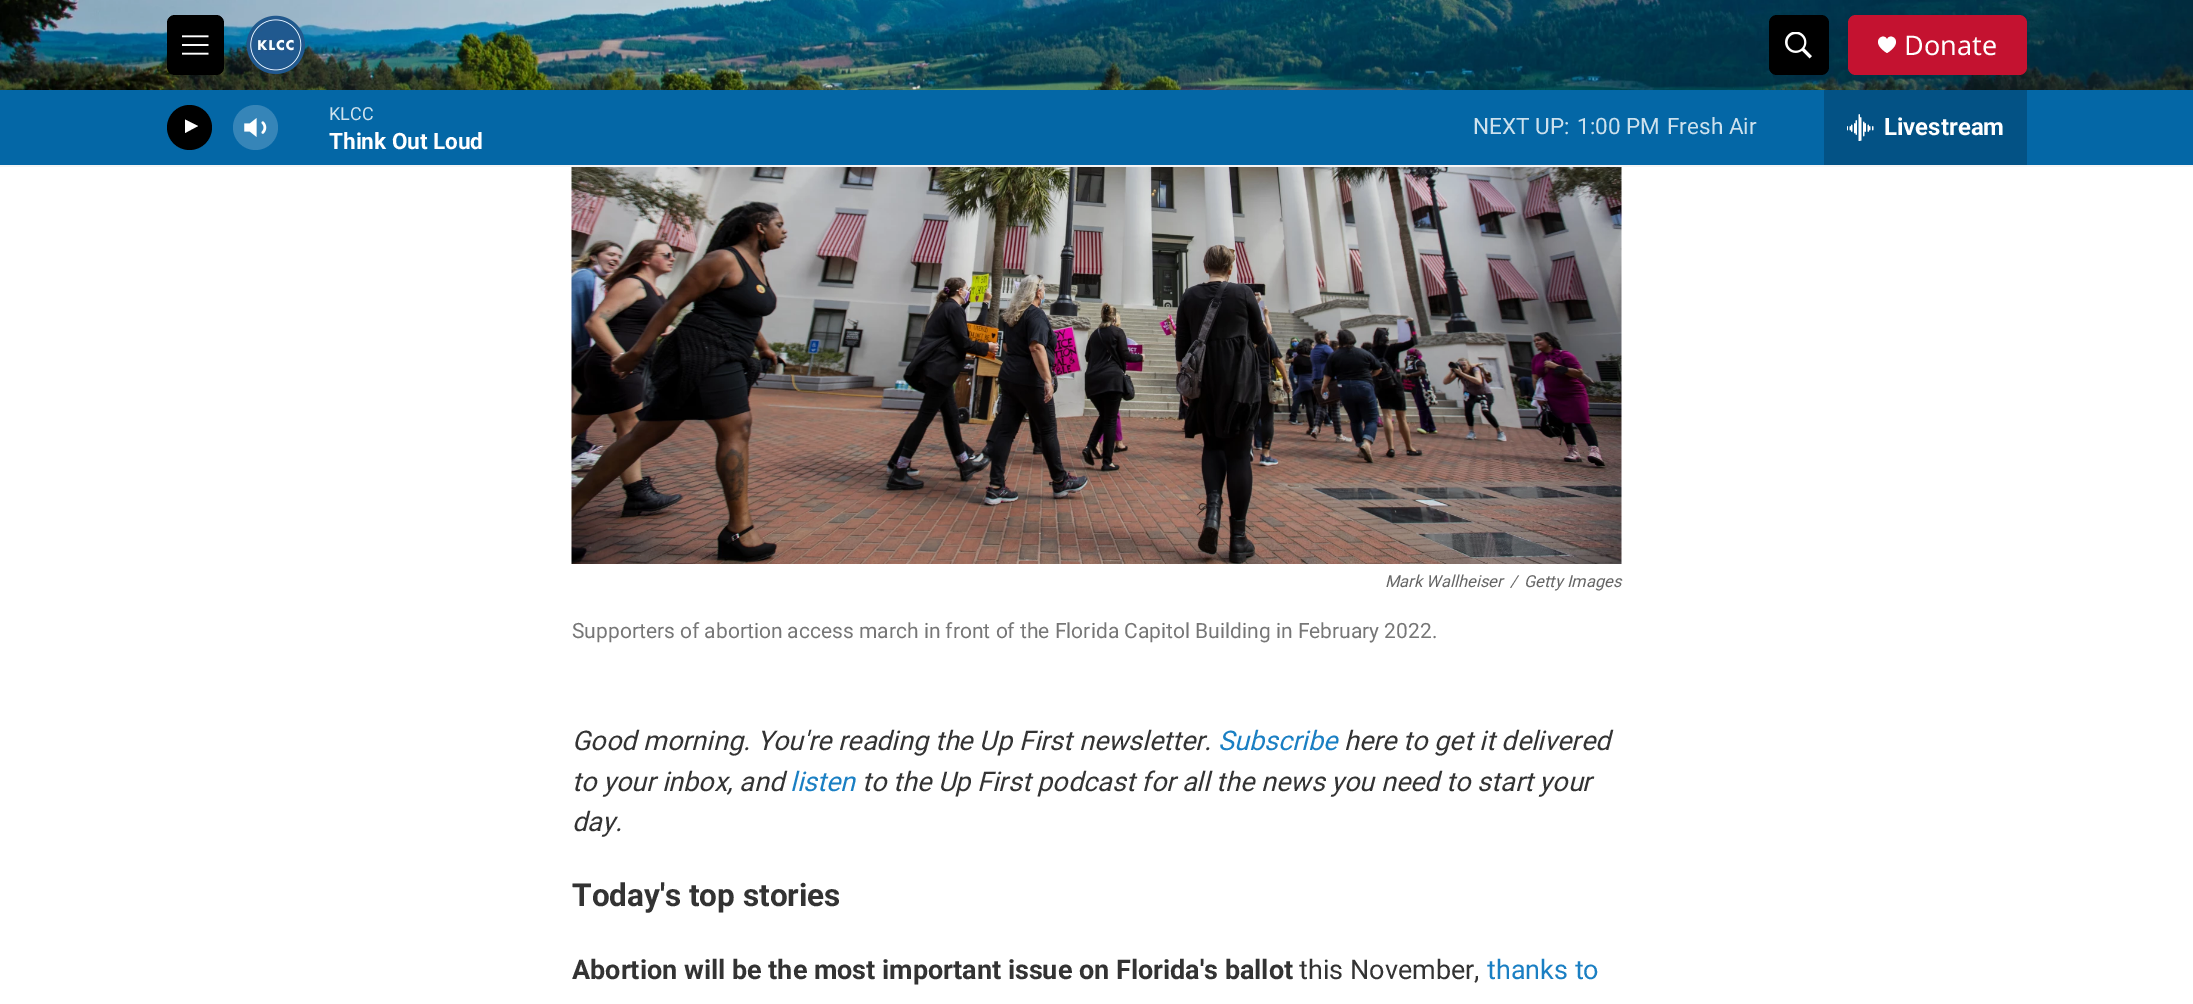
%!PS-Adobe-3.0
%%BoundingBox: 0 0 2193 1004
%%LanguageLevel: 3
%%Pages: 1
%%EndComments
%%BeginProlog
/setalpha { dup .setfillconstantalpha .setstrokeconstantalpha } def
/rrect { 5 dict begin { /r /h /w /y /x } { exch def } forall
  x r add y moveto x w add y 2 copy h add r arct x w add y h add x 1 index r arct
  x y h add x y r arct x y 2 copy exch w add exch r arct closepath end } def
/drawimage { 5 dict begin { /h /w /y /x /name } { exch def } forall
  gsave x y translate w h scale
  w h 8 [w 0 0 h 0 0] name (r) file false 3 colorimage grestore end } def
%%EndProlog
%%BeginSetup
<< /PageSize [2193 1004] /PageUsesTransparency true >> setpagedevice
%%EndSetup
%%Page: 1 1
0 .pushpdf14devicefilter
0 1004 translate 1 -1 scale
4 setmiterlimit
1 setgray
0 0 2193 1004 rectfill
0.961 setgray
0 165 2193 2 rectfill
(images/1.raw) 0 0 2193 90 drawimage
0 setgray
167 15 57 60 8 rrect fill
(images/2.raw) 182 35 27 20 drawimage
(images/3.raw) 246 15 59 60 drawimage
1769 15 60 60 8 rrect fill
(images/4.raw) 1785 32 27 27 drawimage
0.769 0.071 0.188 setrgbcolor
1848 15 179 60 8 rrect fill
1 setgray
newpath 1887 39.5 moveto 1884 31.5 1868.5 41.5 1887 53 curveto 1905.5 41.5 1890 31.5 1887 39.5 curveto closepath fill
0.016 0.404 0.651 setrgbcolor
0 90 2193 75 rectfill
0 setgray
newpath 189.5 127.5 22.5 0 360 arc closepath fill
gsave
185 117 17 23 rectclip
1 setgray
newpath 184 119 moveto 198 126 lineto 184 133.5 lineto closepath fill
grestore
(images/5.raw) 244 118 23 19 drawimage
0.2 setalpha
1 setgray
newpath 255.5 127.5 22.5 0 360 arc closepath fill
1 setalpha
0.012 0.322 0.522 setrgbcolor
1824 90 203 75 rectfill
(images/6.raw) 1847 114 27 27 drawimage
(images/7.raw) 571 167 1051 397 drawimage
/NotoSans-Regular [27 0 0 -27 0 0] selectfont
1 setgray
1904 55 moveto (Donate) show
/Roboto-Regular [18 0 0 -18 0 0] selectfont
0.804 0.882 0.929 setrgbcolor
329 120 moveto (KLCC) show
/Roboto-Bold [22.5 0 0 -22.5 0 0] selectfont
1 setgray
329 149 moveto (Think Out Loud) show
/Roboto-Regular [22.5 0 0 -22.5 0 0] selectfont
0.804 0.882 0.929 setrgbcolor
1473 134 moveto (NEXT UP:) show
1577 134 moveto (1:00 PM) show
1667 134 moveto (Fresh Air) show
/Roboto-Bold [24 0 0 -24 0 0] selectfont
1 setgray
1884 135 moveto (Livestream) show
/Roboto-Italic [16.5 0 0 -16.5 0 0] selectfont
0.4 setgray
1385 587 moveto (Mark Wallheiser) show
1510 587 moveto (/) show
1524 587 moveto (Getty Images) show
/Roboto-Regular [21 0 0 -21 0 0] selectfont
0.463 setgray
572 638 moveto (Supporters of abortion access march in front of the Florida Capitol Building in February 2022.) show
/Roboto-Italic [27 0 0 -27 0 0] selectfont
0.2 setgray
572 750 moveto (Good morning. You're reading the Up First newsletter.) show
0.102 0.498 0.765 setrgbcolor
1218 750 moveto (Subscribe) show
0.2 setgray
1344 750 moveto (here to get it delivered) show
572 791 moveto (to your inbox, and) show
0.102 0.498 0.765 setrgbcolor
790 791 moveto (listen) show
0.2 setgray
862 791 moveto (to the Up First podcast for all the news you need to start your) show
572 831 moveto (day.) show
/Roboto-Bold [31.5 0 0 -31.5 0 0] selectfont
572 906 moveto (Today's top stories) show
/Roboto-Bold [27 0 0 -27 0 0] selectfont
572 979 moveto (Abortion will be the most important issue on Florida's ballot) show
/Roboto-Regular [27 0 0 -27 0 0] selectfont
1299 979 moveto (this November,) show
0.102 0.498 0.765 setrgbcolor
1487 979 moveto (thanks to) show
.poppdf14devicefilter showpage
%%EOF
